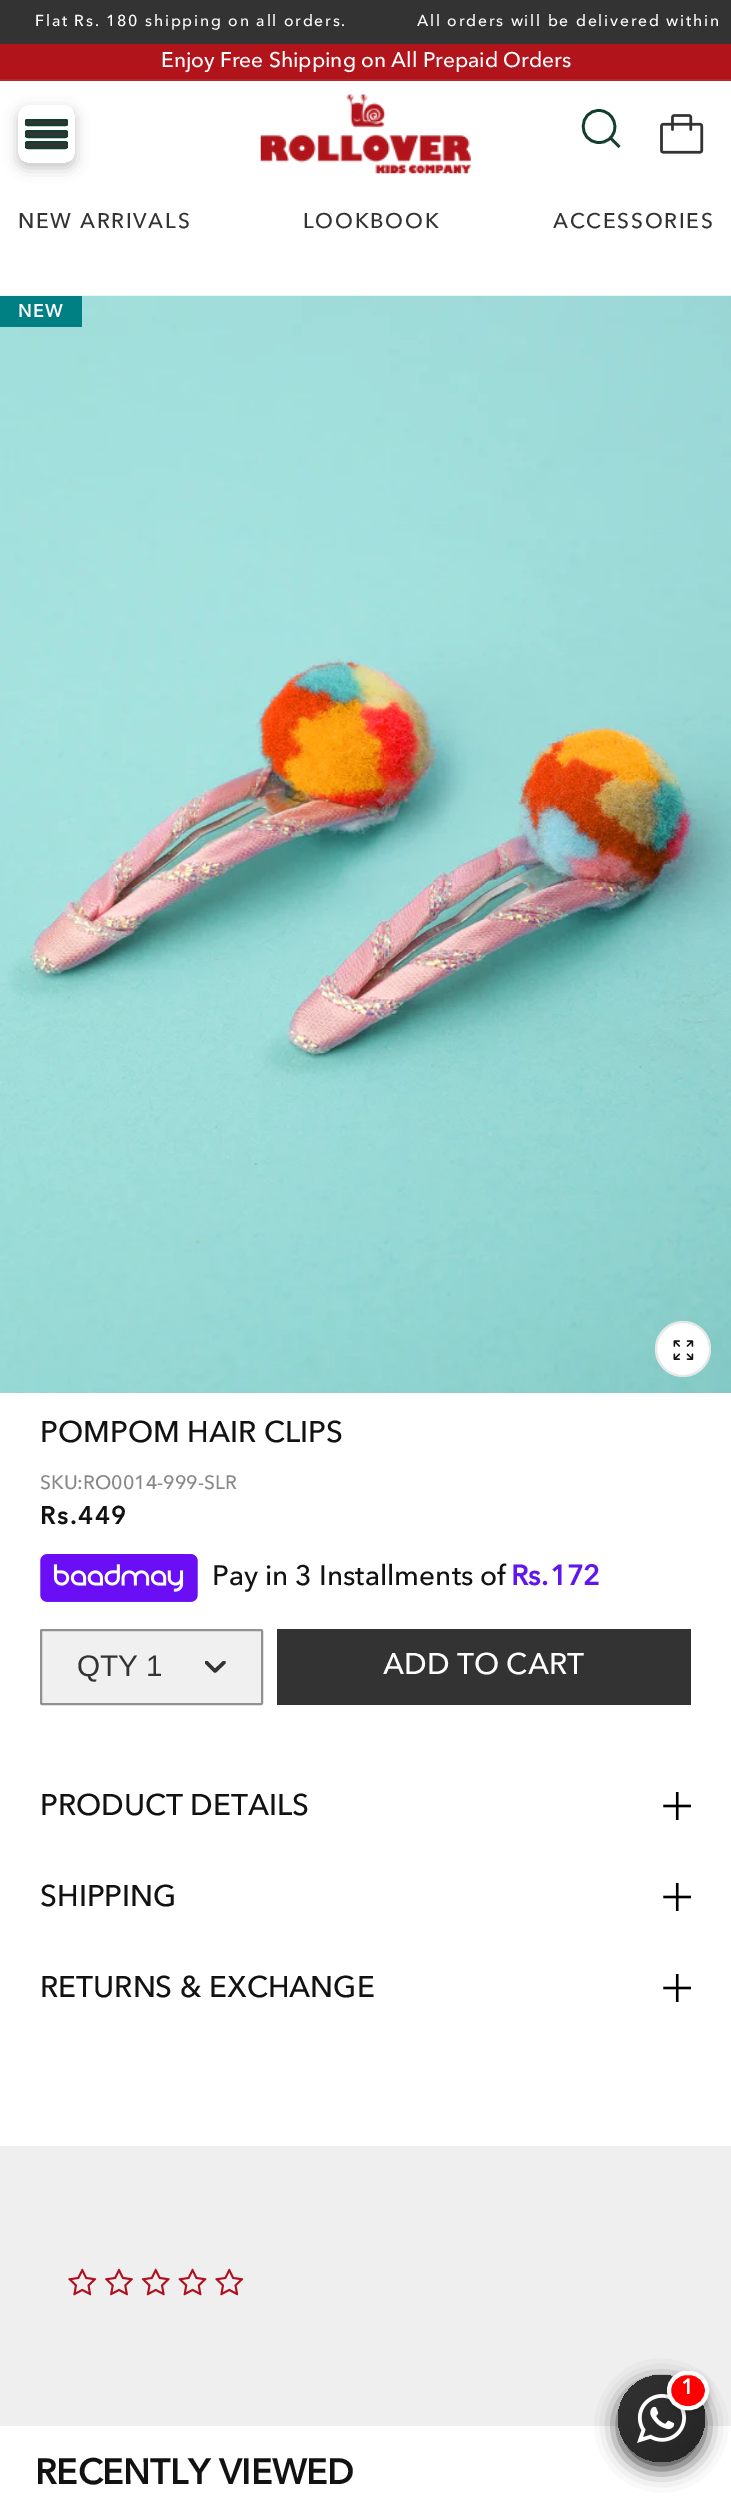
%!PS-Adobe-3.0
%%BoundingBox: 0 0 731 2497
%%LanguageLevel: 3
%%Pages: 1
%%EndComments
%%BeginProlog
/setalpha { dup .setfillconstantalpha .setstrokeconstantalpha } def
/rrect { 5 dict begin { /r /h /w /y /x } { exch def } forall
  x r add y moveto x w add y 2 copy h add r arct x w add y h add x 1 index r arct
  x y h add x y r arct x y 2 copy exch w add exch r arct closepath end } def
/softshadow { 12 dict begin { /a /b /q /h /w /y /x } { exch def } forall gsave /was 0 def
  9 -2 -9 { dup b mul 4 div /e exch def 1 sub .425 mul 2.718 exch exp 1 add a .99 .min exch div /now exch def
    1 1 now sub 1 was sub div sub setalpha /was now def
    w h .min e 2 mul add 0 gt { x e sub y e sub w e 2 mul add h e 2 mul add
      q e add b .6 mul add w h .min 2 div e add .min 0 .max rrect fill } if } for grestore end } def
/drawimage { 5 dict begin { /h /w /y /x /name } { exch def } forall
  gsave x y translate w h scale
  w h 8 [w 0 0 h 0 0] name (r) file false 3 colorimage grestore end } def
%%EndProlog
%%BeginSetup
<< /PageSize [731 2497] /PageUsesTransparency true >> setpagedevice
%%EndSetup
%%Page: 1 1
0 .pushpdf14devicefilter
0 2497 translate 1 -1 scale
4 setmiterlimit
1 setgray
0 0 731 2497 rectfill
0.2 setgray
0 0 731 44 rectfill
0.694 0.078 0.106 setrgbcolor
0 44 731 35 rectfill
0.718 0.153 0.176 setrgbcolor
0 79 731 2 rectfill
gsave
newpath 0 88 moveto 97 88 lineto 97 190 lineto 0 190 lineto closepath 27 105 moveto 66 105 lineto 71 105 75 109 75 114 curveto 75 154 lineto 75 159 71 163 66 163 curveto 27 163 lineto 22 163 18 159 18 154 curveto 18 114 lineto 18 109 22 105 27 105 curveto closepath eoclip newpath
0 setgray
18 110 57 58 9 7 0.24 softshadow
grestore
gsave
25 112 43 44 rectclip
0.2 setgray
25 142 43 6 3 rrect gsave fill grestore
0.067 0.243 0.188 setrgbcolor
2 setlinewidth
stroke
0.2 setgray
25 131 43 6 3 rrect gsave fill grestore
0.067 0.243 0.188 setrgbcolor
stroke
0.2 setgray
25 120 43 5 2.5 rrect gsave fill grestore
0.067 0.243 0.188 setrgbcolor
stroke
grestore
(images/1.raw) 260 94 211 80 drawimage
0.067 0.243 0.188 setrgbcolor
2.7 setlinewidth
newpath 599 110.5 moveto 614 110.5 621 130.5 608.5 139.5 curveto 605.5 141.5 602 143 598.5 142.5 curveto 577.5 141.5 578.5 110.5 599 110.5 curveto closepath 610.5 138 moveto 619.5 147 lineto stroke
(images/2.raw) 660 114 44 40 drawimage
(images/3.raw) 0 295 731 1098 drawimage
0 0.502 0.514 setrgbcolor
0 296 82 31 rectfill
1 setgray
newpath 683 1349 28 0 360 arc closepath fill
0.1 setalpha
0.071 setgray
2 setlinewidth
newpath 683 1349 27 0 360 arc closepath stroke
1 setalpha
(images/4.raw) 673 1340 21 20 drawimage
(images/5.raw) 40 1554 158 48 drawimage
0.941 setgray
41 1630 221 74 1 rrect gsave fill grestore
0.569 setgray
stroke
gsave
205 1661 21 12 rectclip
0.2 setgray
3.5 setlinewidth
1 setlinecap
1 setlinejoin
newpath 206.5 1662.5 moveto 215 1671 lineto 224 1662.5 lineto stroke
grestore
0.2 setgray
277 1629 414 76 rectfill
(images/6.raw) 663 1792 28 28 drawimage
(images/6.raw) 663 1883 28 28 drawimage
(images/6.raw) 663 1974 28 28 drawimage
0.937 setgray
0 2146 731 280 rectfill
(images/7.raw) 68 2268 29 28 drawimage
(images/8.raw) 105 2268 28 28 drawimage
(images/9.raw) 141 2268 29 28 drawimage
(images/10.raw) 178 2268 29 28 drawimage
(images/7.raw) 215 2268 29 28 drawimage
0.2 setgray
618 2382 87 87 43.5 10.5 1 softshadow
gsave newpath 661.5 2418.5 43.5 0 360 arc closepath clip newpath
<< /ShadingType 2 /ColorSpace /DeviceRGB /Coords [618 2375 705 2462] /Extend [true true] /Function << /FunctionType 2 /Domain [0 1] /C0 [0.2 0.2 0.2] /C1 [0.141 0.141 0.141] /N 1 >> >> shfill grestore
(images/11.raw) 637 2394 49 49 drawimage
0 setgray
667 2375 42 38 19 3.5 0.2 softshadow
1 0 0 setrgbcolor
669 2373 38 35 17.5 rrect gsave fill grestore
1 setgray
4 setlinewidth
stroke
/AvenirNext-Medium [15.75 0 0 -15.75 0 0] selectfont
35 26 moveto 1.75 0 (Flat Rs. 180 shipping on all orders.) ashow
417 26 moveto 1.75 0 (All orders will be delivered within) ashow
/AvenirNext-Medium [21 0 0 -21 0 0] selectfont
161 67 moveto (Enjoy Free Shipping on All Prepaid Orders) show
0.2 setgray
18 228 moveto 1.75 0 (NEW ARRIVALS) ashow
303 228 moveto 1.75 0 (LOOKBOOK) ashow
553 228 moveto 1.75 0 (ACCESSORIES) ashow
/AvenirNext-Bold [17.5 0 0 -17.5 0 0] selectfont
1 setgray
18 317 moveto 1.5 0 (NEW) ashow
/AvenirNext-Medium [29.75 0 0 -29.75 0 0] selectfont
0.071 setgray
40 1442 moveto (POMPOM HAIR CLIPS) show
/AvenirNext-Medium [19.25 0 0 -19.25 0 0] selectfont
0.533 setgray
40 1489 moveto (SKU:RO0014-999-SLR) show
/AvenirNext-Bold [24.5 0 0 -24.5 0 0] selectfont
0.071 setgray
40 1524 moveto 2 0 (Rs.449) ashow
/AvenirNext-Medium [28 0 0 -28 0 0] selectfont
212 1585 moveto (Pay in 3 Installments of) show
/AvenirNext-Bold [28 0 0 -28 0 0] selectfont
0.376 0.086 0.925 setrgbcolor
511 1585 moveto (Rs.) show
550 1585 moveto (172) show
/LiberationSans-Regular [29.75 0 0 -29.75 0 0] selectfont
0.2 setgray
77 1676 moveto (QTY 1) show
/AvenirNext-Medium [29.75 0 0 -29.75 0 0] selectfont
1 setgray
383 1674 moveto (ADD TO CART) show
0.071 setgray
40 1815 moveto (PRODUCT DETAILS) show
40 1906 moveto (SHIPPING) show
40 1997 moveto (RETURNS & EXCHANGE) show
/AvenirNext-Bold [21 0 0 -21 0 0] selectfont
1 setgray
681 2394 moveto 1.75 0 (1) ashow
/AvenirNext-Bold [35 0 0 -35 0 0] selectfont
0.071 setgray
35 2484 moveto (RECENTLY VIEWED) show
.poppdf14devicefilter showpage
%%EOF
